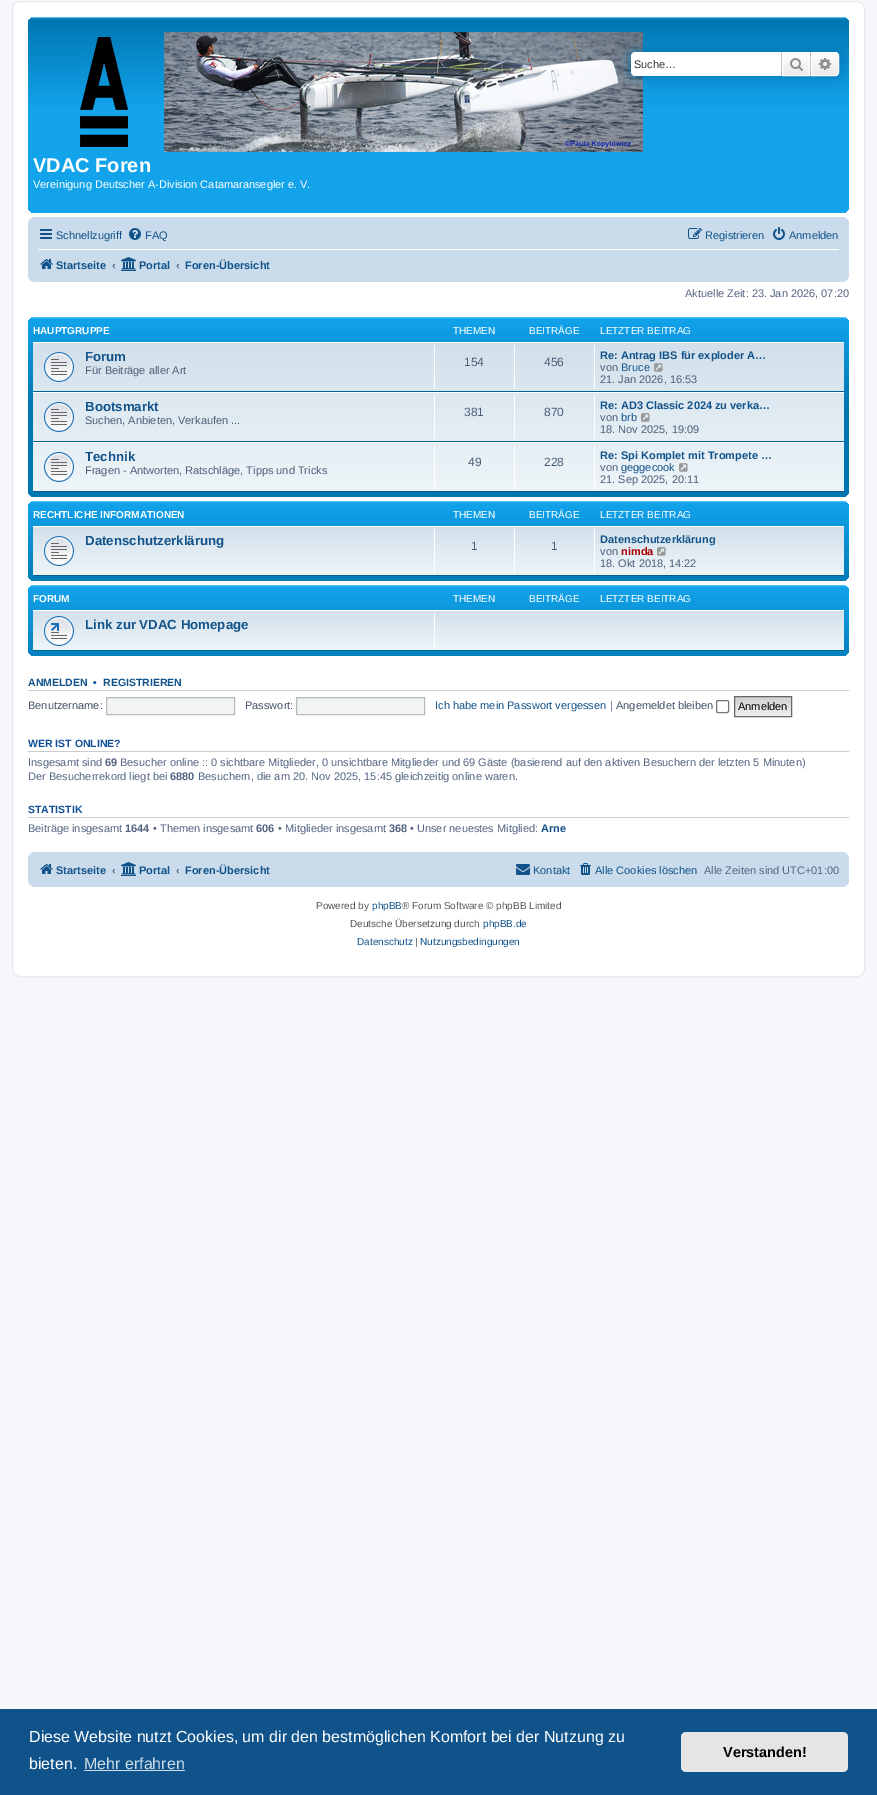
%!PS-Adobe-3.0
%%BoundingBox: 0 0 877 1795
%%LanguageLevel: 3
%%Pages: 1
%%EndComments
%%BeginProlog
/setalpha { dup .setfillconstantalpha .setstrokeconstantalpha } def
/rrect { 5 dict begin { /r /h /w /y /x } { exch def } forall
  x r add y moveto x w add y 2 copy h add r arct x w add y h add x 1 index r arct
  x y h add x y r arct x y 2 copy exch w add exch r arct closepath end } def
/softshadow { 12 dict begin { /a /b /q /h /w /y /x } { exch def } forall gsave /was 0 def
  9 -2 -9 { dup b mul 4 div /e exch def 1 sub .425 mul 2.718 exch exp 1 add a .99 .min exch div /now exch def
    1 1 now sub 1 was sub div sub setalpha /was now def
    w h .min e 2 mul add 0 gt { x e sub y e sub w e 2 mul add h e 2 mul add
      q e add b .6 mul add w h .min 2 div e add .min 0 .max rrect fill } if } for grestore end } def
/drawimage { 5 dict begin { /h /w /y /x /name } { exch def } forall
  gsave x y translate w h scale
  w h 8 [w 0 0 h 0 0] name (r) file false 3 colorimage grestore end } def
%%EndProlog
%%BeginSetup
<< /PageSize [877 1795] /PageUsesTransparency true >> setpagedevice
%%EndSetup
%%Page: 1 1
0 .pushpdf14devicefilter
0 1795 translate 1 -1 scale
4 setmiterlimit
0.961 0.969 0.98 setrgbcolor
0 0 877 1795 rectfill
1 setgray
12.5 1.5 852 975 7.5 rrect gsave fill grestore
0.902 0.914 0.929 setrgbcolor
stroke
gsave 28 17 821 196 7 rrect clip newpath
<< /ShadingType 2 /ColorSpace /DeviceRGB /Coords [439 17 439 213] /Extend [true true] /Function << /FunctionType 3 /Domain [0 1] /Functions [<< /FunctionType 2 /Domain [0 1] /C0 [0.416 0.808 1] /C1 [0 0.463 0.694] /N 1 >> << /FunctionType 2 /Domain [0 1] /C0 [0 0.463 0.694] /C1 [0.071 0.639 0.922] /N 1 >> << /FunctionType 2 /Domain [0 1] /C0 [0.071 0.639 0.922] /C1 [0.071 0.639 0.922] /N 1 >>] /Bounds [0.01 0.47] /Encode [0 1 0 1 0 1] >> >> shfill grestore
(images/3.raw) 80 32 563 120 drawimage
0 0.459 0.69 setrgbcolor
631 52 208 24 4 5 1 softshadow
1 setgray
newpath 635 52 moveto 781 52 lineto 781 76 lineto 635 76 lineto 633 76 631 74 631 72 curveto 631 56 lineto 631 54 633 52 635 52 curveto closepath fill
gsave newpath 783 53 moveto 809 53 lineto 809 75 lineto 783 75 lineto closepath clip newpath
<< /ShadingType 2 /ColorSpace /DeviceRGB /Coords [796 52 796 76] /Extend [true true] /Function << /FunctionType 2 /Domain [0 1] /C0 [1 1 1] /C1 [0.914 0.914 0.914] /N 1 >> >> shfill grestore
782.5 52.5 27 23 rectstroke
0.78 0.765 0.749 setrgbcolor
810 52 1 24 rectfill
781 52 1 24 rectfill
(images/1.raw) 790 58 13 13 drawimage
gsave newpath 811.5 52.5 moveto 835 52.5 lineto 837 52.5 838.5 54 838.5 56 curveto 838.5 72 lineto 838.5 74 837 75.5 835 75.5 curveto 811.5 75.5 lineto closepath clip newpath
<< /ShadingType 2 /ColorSpace /DeviceRGB /Coords [825 52 825 76] /Extend [true true] /Function << /FunctionType 2 /Domain [0 1] /C0 [1 1 1] /C1 [0.914 0.914 0.914] /N 1 >> >> shfill grestore
1 setgray
newpath 811.5 52.5 moveto 835 52.5 lineto 837 52.5 838.5 54 838.5 56 curveto 838.5 72 lineto 838.5 74 837 75.5 835 75.5 curveto 811.5 75.5 lineto closepath stroke
(images/2.raw) 819 58 12 12 drawimage
0.792 0.863 0.922 setrgbcolor
28 217 821 65 7 rrect fill
(images/4.raw) 40 229 12 10 drawimage
(images/5.raw) 129 228 12 12 drawimage
(images/6.raw) 688 228 14 11 drawimage
(images/7.raw) 773 227 12 13 drawimage
1 setgray
38 249 801 1 rectfill
(images/8.raw) 40 259 13 10 drawimage
(images/9.raw) 121 257 15 14 drawimage
gsave 28 317 821 180 7 rrect clip newpath
<< /ShadingType 2 /ColorSpace /DeviceRGB /Coords [439 317 439 497] /Extend [true true] /Function << /FunctionType 3 /Domain [0 1] /Functions [<< /FunctionType 2 /Domain [0 1] /C0 [0.416 0.808 1] /C1 [0.071 0.639 0.922] /N 1 >> << /FunctionType 2 /Domain [0 1] /C0 [0.071 0.639 0.922] /C1 [0 0.463 0.694] /N 1 >> << /FunctionType 2 /Domain [0 1] /C0 [0 0.463 0.694] /C1 [0 0.463 0.694] /N 1 >>] /Bounds [0.01 0.51] /Encode [0 1 0 1 0 1] >> >> shfill grestore
gsave newpath 33 343 moveto 844 343 lineto 844 491 lineto 33 491 lineto closepath clip newpath
<< /ShadingType 2 /ColorSpace /DeviceRGB /Coords [439 342 439 492] /Extend [true true] /Function << /FunctionType 2 /Domain [0 1] /C0 [0.824 0.878 0.922] /C1 [0.933 0.961 0.976] /N 1 >> >> shfill grestore
33 342 811 1 rectfill
0 0.376 0.561 setrgbcolor
33 391 811 1 rectfill
(images/10.raw) 44 352 30 30 drawimage
1 setgray
434 345 1 44 rectfill
514 345 1 44 rectfill
594 345 1 44 rectfill
(images/11.raw) 654 363 9 9 drawimage
33 392 811 1 rectfill
0 0.376 0.561 setrgbcolor
33 441 811 1 rectfill
(images/12.raw) 44 402 30 30 drawimage
1 setgray
434 395 1 44 rectfill
514 395 1 44 rectfill
594 395 1 44 rectfill
(images/13.raw) 641 413 9 9 drawimage
33 442 811 1 rectfill
0 0.376 0.561 setrgbcolor
33 491 811 1 rectfill
(images/14.raw) 44 452 30 30 drawimage
1 setgray
434 445 1 44 rectfill
514 445 1 44 rectfill
594 445 1 44 rectfill
(images/15.raw) 679 463 9 9 drawimage
gsave 28 501 821 80 7 rrect clip newpath
<< /ShadingType 2 /ColorSpace /DeviceRGB /Coords [439 501 439 593] /Extend [true true] /Function << /FunctionType 3 /Domain [0 1] /Functions [<< /FunctionType 2 /Domain [0 1] /C0 [0.416 0.808 1] /C1 [0.071 0.639 0.922] /N 1 >> << /FunctionType 2 /Domain [0 1] /C0 [0.071 0.639 0.922] /C1 [0 0.463 0.694] /N 1 >>] /Bounds [0.02] /Encode [0 1 0 1] >> >> shfill grestore
gsave newpath 33 527 moveto 844 527 lineto 844 575 lineto 33 575 lineto closepath clip newpath
<< /ShadingType 2 /ColorSpace /DeviceRGB /Coords [439 526 439 576] /Extend [true true] /Function << /FunctionType 2 /Domain [0 1] /C0 [0.824 0.878 0.922] /C1 [0.933 0.961 0.976] /N 1 >> >> shfill grestore
33 526 811 1 rectfill
0 0.376 0.561 setrgbcolor
33 575 811 1 rectfill
(images/16.raw) 44 536 30 30 drawimage
1 setgray
434 529 1 44 rectfill
514 529 1 44 rectfill
594 529 1 44 rectfill
(images/17.raw) 657 547 9 9 drawimage
gsave 28 585 821 71 7 rrect clip newpath
<< /ShadingType 2 /ColorSpace /DeviceRGB /Coords [439 585 439 677] /Extend [true true] /Function << /FunctionType 3 /Domain [0 1] /Functions [<< /FunctionType 2 /Domain [0 1] /C0 [0.416 0.808 1] /C1 [0.071 0.639 0.922] /N 1 >> << /FunctionType 2 /Domain [0 1] /C0 [0.071 0.639 0.922] /C1 [0 0.463 0.694] /N 1 >>] /Bounds [0.02] /Encode [0 1 0 1] >> >> shfill grestore
gsave newpath 33 611 moveto 844 611 lineto 844 650 lineto 33 650 lineto closepath clip newpath
<< /ShadingType 2 /ColorSpace /DeviceRGB /Coords [439 610 439 651] /Extend [true true] /Function << /FunctionType 2 /Domain [0 1] /C0 [0.824 0.878 0.922] /C1 [0.933 0.961 0.976] /N 1 >> >> shfill grestore
33 610 811 1 rectfill
0 0.376 0.561 setrgbcolor
33 650 811 1 rectfill
(images/18.raw) 44 616 30 30 drawimage
1 setgray
434 613 1 35 rectfill
0.8 setgray
28 690 821 1 rectfill
0.949 0.953 0.953 setrgbcolor
newpath 106.5 697.5 moveto 234.5 697.5 lineto 234.5 714.5 lineto 106.5 714.5 lineto closepath gsave fill grestore
0.706 0.729 0.753 setrgbcolor
stroke
0.949 0.953 0.953 setrgbcolor
newpath 296.5 697.5 moveto 424.5 697.5 lineto 424.5 714.5 lineto 296.5 714.5 lineto closepath gsave fill grestore
0.706 0.729 0.753 setrgbcolor
stroke
0.463 setgray
716.5 700.5 12 12 1.5 rrect stroke
gsave newpath 735 697 moveto 791 697 lineto 791 716 lineto 735 716 lineto closepath clip newpath
<< /ShadingType 2 /ColorSpace /DeviceRGB /Coords [763 697 763 716] /Extend [true true] /Function << /FunctionType 2 /Domain [0 1] /C0 [0.824 0.824 0.824] /C1 [0.937 0.937 0.937] /N 1 >> >> shfill grestore
0.4 setgray
734.5 696.5 57 20 rectstroke
0.8 setgray
28 751 821 1 rectfill
28 817 821 1 rectfill
0.792 0.863 0.922 setrgbcolor
28 852 821 35 7 rrect fill
(images/8.raw) 40 864 13 10 drawimage
(images/9.raw) 121 862 15 14 drawimage
(images/19.raw) 516 864 14 11 drawimage
(images/20.raw) 580 863 11 12 drawimage
0.059 0.325 0.541 setrgbcolor
0 1709 877 86 rectfill
0.812 0.867 0.91 setrgbcolor
84 1770 101 1 rectfill
0.898 setgray
681 1732 167 40 5 rrect fill
/LiberationSans-Regular [11 0 0 -11 0 0] selectfont
0.2 setgray
634 68 moveto (Suche…) show
/LiberationSans-Bold [20 0 0 -20 0 0] selectfont
1 setgray
33 172 moveto (VDAC Foren) show
/LiberationSans-Regular [11 0 0 -11 0 0] selectfont
33 188 moveto (Vereinigung Deutscher A-Division Catamaransegler e. V.) show
0.063 0.322 0.537 setrgbcolor
56 239 moveto (Schnellzugriff) show
145 239 moveto (FAQ) show
705 239 moveto (Registrieren) show
789 239 moveto (Anmelden) show
/LiberationSans-Bold [11 0 0 -11 0 0] selectfont
56 269 moveto (Startseite) show
0.325 0.392 0.51 setrgbcolor
112 269 moveto (‹) show
0.063 0.322 0.537 setrgbcolor
139 269 moveto (Portal) show
0.325 0.392 0.51 setrgbcolor
176 269 moveto (‹) show
0.063 0.322 0.537 setrgbcolor
185 269 moveto (Foren-Übersicht) show
/LiberationSans-Regular [11 0 0 -11 0 0] selectfont
0.325 0.392 0.51 setrgbcolor
685 297 moveto (Aktuelle Zeit: 23. Jan 2026, 07:20) show
/LiberationSans-Bold [10 0 0 -10 0 0] selectfont
1 setgray
33 334 moveto (HAUPTGRUPPE) show
/LiberationSans-Regular [10 0 0 -10 0 0] selectfont
453 334 moveto (THEMEN) show
529 334 moveto (BEITRÄGE) show
600 334 moveto (LETZTER BEITRAG) show
/LiberationSans-Bold [13.25 0 0 -13.25 0 0] selectfont
0.063 0.322 0.537 setrgbcolor
85 361 moveto (Forum) show
/LiberationSans-Regular [11 0 0 -11 0 0] selectfont
0.298 0.365 0.467 setrgbcolor
85 374 moveto (Für Beiträge aller Art) show
/LiberationSans-Regular [12 0 0 -12 0 0] selectfont
464 366 moveto (154) show
544 366 moveto (456) show
/LiberationSans-Bold [11 0 0 -11 0 0] selectfont
0.063 0.322 0.537 setrgbcolor
600 359 moveto (Re: Antrag IBS für exploder A…) show
/LiberationSans-Regular [11 0 0 -11 0 0] selectfont
0.298 0.365 0.467 setrgbcolor
600 371 moveto (von) show
0.063 0.322 0.537 setrgbcolor
621 371 moveto (Bruce) show
0.298 0.365 0.467 setrgbcolor
600 383 moveto (21. Jan 2026, 16:53) show
/LiberationSans-Bold [13.25 0 0 -13.25 0 0] selectfont
0.063 0.322 0.537 setrgbcolor
85 411 moveto (Bootsmarkt) show
/LiberationSans-Regular [11 0 0 -11 0 0] selectfont
0.298 0.365 0.467 setrgbcolor
85 424 moveto (Suchen, Anbieten, Verkaufen ...) show
/LiberationSans-Regular [12 0 0 -12 0 0] selectfont
464 416 moveto (381) show
544 416 moveto (870) show
/LiberationSans-Bold [11 0 0 -11 0 0] selectfont
0.063 0.322 0.537 setrgbcolor
600 409 moveto (Re: AD3 Classic 2024 zu verka…) show
/LiberationSans-Regular [11 0 0 -11 0 0] selectfont
0.298 0.365 0.467 setrgbcolor
600 421 moveto (von) show
0.063 0.322 0.537 setrgbcolor
621 421 moveto (brb) show
0.298 0.365 0.467 setrgbcolor
600 433 moveto (18. Nov 2025, 19:09) show
/LiberationSans-Bold [13.25 0 0 -13.25 0 0] selectfont
0.063 0.322 0.537 setrgbcolor
85 461 moveto (Technik) show
/LiberationSans-Regular [11 0 0 -11 0 0] selectfont
0.298 0.365 0.467 setrgbcolor
85 474 moveto (Fragen - Antworten, Ratschläge, Tipps und Tricks) show
/LiberationSans-Regular [12 0 0 -12 0 0] selectfont
468 466 moveto (49) show
544 466 moveto (228) show
/LiberationSans-Bold [11 0 0 -11 0 0] selectfont
0.063 0.322 0.537 setrgbcolor
600 459 moveto (Re: Spi Komplet mit Trompete …) show
/LiberationSans-Regular [11 0 0 -11 0 0] selectfont
0.298 0.365 0.467 setrgbcolor
600 471 moveto (von) show
0.063 0.322 0.537 setrgbcolor
621 471 moveto (geggecook) show
0.298 0.365 0.467 setrgbcolor
600 483 moveto (21. Sep 2025, 20:11) show
/LiberationSans-Bold [10 0 0 -10 0 0] selectfont
1 setgray
33 518 moveto (RECHTLICHE INFORMATIONEN) show
/LiberationSans-Regular [10 0 0 -10 0 0] selectfont
453 518 moveto (THEMEN) show
529 518 moveto (BEITRÄGE) show
600 518 moveto (LETZTER BEITRAG) show
/LiberationSans-Bold [13.25 0 0 -13.25 0 0] selectfont
0.063 0.322 0.537 setrgbcolor
85 545 moveto (Datenschutzerklärung) show
/LiberationSans-Regular [12 0 0 -12 0 0] selectfont
0.298 0.365 0.467 setrgbcolor
471 550 moveto (1) show
551 550 moveto (1) show
/LiberationSans-Bold [11 0 0 -11 0 0] selectfont
0.063 0.322 0.537 setrgbcolor
600 543 moveto (Datenschutzerklärung) show
/LiberationSans-Regular [11 0 0 -11 0 0] selectfont
0.298 0.365 0.467 setrgbcolor
600 555 moveto (von) show
/LiberationSans-Bold [11 0 0 -11 0 0] selectfont
0.667 0 0 setrgbcolor
621 555 moveto (nimda) show
/LiberationSans-Regular [11 0 0 -11 0 0] selectfont
0.298 0.365 0.467 setrgbcolor
600 567 moveto (18. Okt 2018, 14:22) show
/LiberationSans-Bold [10 0 0 -10 0 0] selectfont
1 setgray
33 602 moveto (FORUM) show
/LiberationSans-Regular [10 0 0 -10 0 0] selectfont
453 602 moveto (THEMEN) show
529 602 moveto (BEITRÄGE) show
600 602 moveto (LETZTER BEITRAG) show
/LiberationSans-Bold [13.25 0 0 -13.25 0 0] selectfont
0.063 0.322 0.537 setrgbcolor
85 629 moveto (Link zur VDAC Homepage) show
/LiberationSans-Bold [10.5 0 0 -10.5 0 0] selectfont
28 686 moveto (ANMELDEN) show
0.067 0.314 0.596 setrgbcolor
93 686 moveto (•) show
0.063 0.322 0.537 setrgbcolor
103 686 moveto (REGISTRIEREN) show
/LiberationSans-Regular [11 0 0 -11 0 0] selectfont
0.259 0.314 0.404 setrgbcolor
28 709 moveto (Benutzername:) show
245 709 moveto (Passwort:) show
0.063 0.322 0.537 setrgbcolor
435 709 moveto (Ich habe mein Passwort vergessen) show
0.325 0.392 0.51 setrgbcolor
610 709 moveto (|) show
0.259 0.314 0.404 setrgbcolor
616 709 moveto (Angemeldet bleiben) show
0 setgray
738 710 moveto (Anmelden) show
/LiberationSans-Bold [10.5 0 0 -10.5 0 0] selectfont
0.067 0.314 0.596 setrgbcolor
28 747 moveto (WER IST ONLINE?) show
/LiberationSans-Regular [11 0 0 -11 0 0] selectfont
0.325 0.392 0.51 setrgbcolor
28 766 moveto (Insgesamt sind) show
/LiberationSans-Bold [11 0 0 -11 0 0] selectfont
105 766 moveto (69) show
/LiberationSans-Regular [11 0 0 -11 0 0] selectfont
120 766 moveto (Besucher online :: 0 sichtbare Mitglieder, 0 unsichtbare Mitglieder und 69 Gäste \(basierend auf den aktiven Besuchern der letzten 5 Minuten\)) show
28 780 moveto (Der Besucherrekord liegt bei) show
/LiberationSans-Bold [11 0 0 -11 0 0] selectfont
170 780 moveto (6880) show
/LiberationSans-Regular [11 0 0 -11 0 0] selectfont
198 780 moveto (Besuchern, die am 20. Nov 2025, 15:45 gleichzeitig online waren.) show
/LiberationSans-Bold [10.5 0 0 -10.5 0 0] selectfont
0.067 0.314 0.596 setrgbcolor
28 813 moveto (STATISTIK) show
/LiberationSans-Regular [11 0 0 -11 0 0] selectfont
0.325 0.392 0.51 setrgbcolor
28 832 moveto (Beiträge insgesamt) show
/LiberationSans-Bold [11 0 0 -11 0 0] selectfont
125 832 moveto (1644) show
/LiberationSans-Regular [11 0 0 -11 0 0] selectfont
153 832 moveto (• Themen insgesamt) show
/LiberationSans-Bold [11 0 0 -11 0 0] selectfont
256 832 moveto (606) show
/LiberationSans-Regular [11 0 0 -11 0 0] selectfont
278 832 moveto (• Mitglieder insgesamt) show
/LiberationSans-Bold [11 0 0 -11 0 0] selectfont
389 832 moveto (368) show
/LiberationSans-Regular [11 0 0 -11 0 0] selectfont
410 832 moveto (• Unser neuestes Mitglied:) show
/LiberationSans-Bold [11 0 0 -11 0 0] selectfont
0.063 0.322 0.537 setrgbcolor
541 832 moveto (Arne) show
56 874 moveto (Startseite) show
0.325 0.392 0.51 setrgbcolor
112 874 moveto (‹) show
0.063 0.322 0.537 setrgbcolor
139 874 moveto (Portal) show
0.325 0.392 0.51 setrgbcolor
176 874 moveto (‹) show
0.063 0.322 0.537 setrgbcolor
185 874 moveto (Foren-Übersicht) show
/LiberationSans-Regular [11 0 0 -11 0 0] selectfont
533 874 moveto (Kontakt) show
595 874 moveto (Alle Cookies löschen) show
0.325 0.392 0.51 setrgbcolor
704 874 moveto (Alle Zeiten sind UTC+01:00) show
/LiberationSans-Regular [10 0 0 -10 0 0] selectfont
0.333 setgray
316 909 moveto (Powered by) show
0.063 0.322 0.537 setrgbcolor
372 909 moveto (phpBB) show
0.333 setgray
402 909 moveto (® Forum Software © phpBB Limited) show
350 927 moveto (Deutsche Übersetzung durch) show
0.063 0.322 0.537 setrgbcolor
483 927 moveto (phpBB.de) show
357 945 moveto (Datenschutz) show
0.333 setgray
415 945 moveto (|) show
0.063 0.322 0.537 setrgbcolor
420 945 moveto (Nutzungsbedingungen) show
/LiberationSans-Regular [16 0 0 -16 0 0] selectfont
1 setgray
29 1742 moveto (Diese Website nutzt Cookies, um dir den bestmöglichen Komfort bei der Nutzung zu) show
29 1769 moveto (bieten.) show
0.812 0.867 0.91 setrgbcolor
84 1769 moveto (Mehr erfahren) show
/LiberationSans-Bold [14.5 0 0 -14.5 0 0] selectfont
0 setgray
723 1757 moveto (Verstanden!) show
.poppdf14devicefilter showpage
%%EOF
